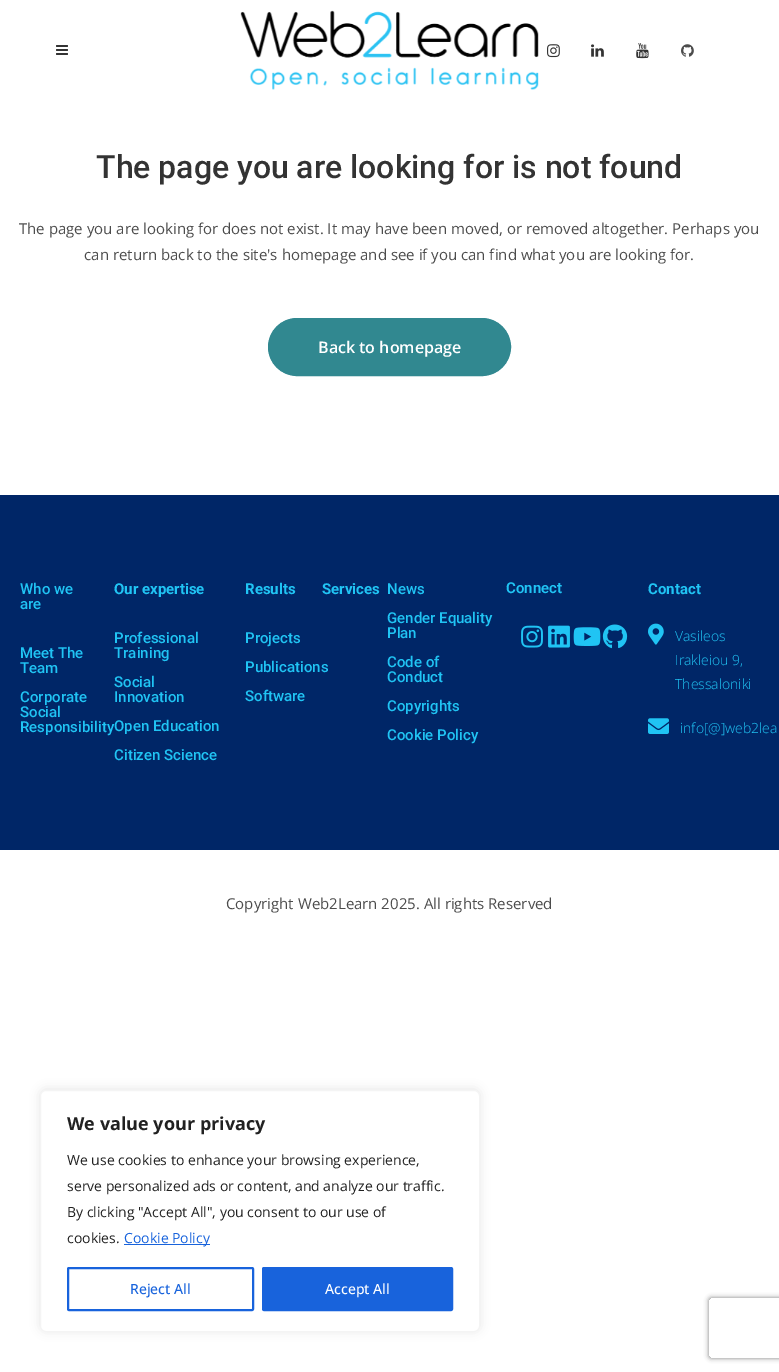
%!PS-Adobe-3.0
%%BoundingBox: 0 0 779 1372
%%LanguageLevel: 3
%%Pages: 1
%%EndComments
%%BeginProlog
/setalpha { dup .setfillconstantalpha .setstrokeconstantalpha } def
/rrect { 5 dict begin { /r /h /w /y /x } { exch def } forall
  x r add y moveto x w add y 2 copy h add r arct x w add y h add x 1 index r arct
  x y h add x y r arct x y 2 copy exch w add exch r arct closepath end } def
/softshadow { 12 dict begin { /a /b /q /h /w /y /x } { exch def } forall gsave /was 0 def
  9 -2 -9 { dup b mul 4 div /e exch def 1 sub .425 mul 2.718 exch exp 1 add a .99 .min exch div /now exch def
    1 1 now sub 1 was sub div sub setalpha /was now def
    w h .min e 2 mul add 0 gt { x e sub y e sub w e 2 mul add h e 2 mul add
      q e add b .6 mul add w h .min 2 div e add .min 0 .max rrect fill } if } for grestore end } def
/drawimage { 5 dict begin { /h /w /y /x /name } { exch def } forall
  gsave x y translate w h scale
  w h 8 [w 0 0 h 0 0] name (r) file false 3 colorimage grestore end } def
%%EndProlog
%%BeginSetup
<< /PageSize [779 1372] /PageUsesTransparency true >> setpagedevice
%%EndSetup
%%Page: 1 1
0 .pushpdf14devicefilter
0 1372 translate 1 -1 scale
4 setmiterlimit
1 setgray
0 0 779 1372 rectfill
(images/1.raw) 56 45 12 10 drawimage
(images/2.raw) 240 10 299 80 drawimage
(images/3.raw) 547 44 13 14 drawimage
(images/4.raw) 591 44 13 13 drawimage
(images/5.raw) 636 43 13 16 drawimage
(images/6.raw) 681 44 13 13 drawimage
0.192 0.533 0.565 setrgbcolor
268.5 318.5 242 57 28.5 rrect gsave fill grestore
stroke
0 0.149 0.404 setrgbcolor
0 495 779 355 rectfill
(images/7.raw) 521 625 22 23 drawimage
(images/8.raw) 548 625 22 23 drawimage
(images/9.raw) 573 627 28 19 drawimage
(images/10.raw) 602 624 26 25 drawimage
(images/11.raw) 648 623 16 22 drawimage
(images/12.raw) 648 718 21 16 drawimage
0.675 0.671 0.671 setrgbcolor
40 1089 440 242 6 5 0.3 softshadow
1 setgray
40.5 1090.5 439 241 5.5 rrect gsave fill grestore
0.957 setgray
stroke
0.094 0.388 0.863 setrgbcolor
124 1244 86 1 rectfill
2 setlinewidth
68 1268 185 42 1 rrect stroke
263 1268 189 42 1 rrect gsave fill grestore
stroke
gsave
newpath 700 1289 moveto 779 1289 lineto 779 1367 lineto 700 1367 lineto closepath 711 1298 moveto 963 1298 lineto 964 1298 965 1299 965 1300 curveto 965 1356 lineto 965 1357 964 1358 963 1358 curveto 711 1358 lineto 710 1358 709 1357 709 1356 curveto 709 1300 lineto 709 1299 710 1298 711 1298 curveto closepath eoclip newpath
0.502 setgray
709 1298 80 60 2 2.5 1 softshadow
grestore
/Roboto-Medium [32 0 0 -32 0 0] selectfont
0.2 setgray
96 178 moveto (The page you are looking for is not found) show
/OpenSans-Regular [15 0 0 -15 0 0] selectfont
0.298 setgray
19 234 moveto (The page you are looking for does not exist. It may have been moved, or removed altogether. Perhaps you) show
84 260 moveto (can return back to the site's homepage and see if you can find what you are looking for.) show
/OpenSans-SemiBold [16 0 0 -16 0 0] selectfont
1 setgray
318 353 moveto (Back to homepage) show
/Roboto-Medium [15 0 0 -15 0 0] selectfont
0.125 0.769 0.957 setrgbcolor
20 594 moveto (Who we) show
20 609 moveto (are) show
20 658 moveto (Meet The) show
20 673 moveto (Team) show
20 702 moveto (Corporate) show
20 717 moveto (Social) show
20 732 moveto (Responsibility) show
/Roboto-Bold [15 0 0 -15 0 0] selectfont
114 594 moveto (Our expertise) show
/Roboto-Medium [15 0 0 -15 0 0] selectfont
114 643 moveto (Professional) show
114 658 moveto (Training) show
114 687 moveto (Social) show
114 702 moveto (Innovation) show
114 731 moveto (Open Education) show
114 760 moveto (Citizen Science) show
/Roboto-Bold [15 0 0 -15 0 0] selectfont
245 594 moveto (Results) show
/Roboto-Medium [15 0 0 -15 0 0] selectfont
245 643 moveto (Projects) show
245 672 moveto (Publications) show
245 701 moveto (Software) show
/Roboto-Bold [15 0 0 -15 0 0] selectfont
322 594 moveto (Services) show
/Roboto-Medium [15 0 0 -15 0 0] selectfont
387 594 moveto (News) show
387 623 moveto (Gender Equality) show
387 638 moveto (Plan) show
387 667 moveto (Code of) show
387 682 moveto (Conduct) show
387 711 moveto (Copyrights) show
387 740 moveto (Cookie Policy) show
/Roboto-SemiBold [15 0 0 -15 0 0] selectfont
506 593 moveto (Connect) show
/Roboto-Bold [15 0 0 -15 0 0] selectfont
648 594 moveto (Contact) show
/OpenSans-Light [14 0 0 -14 0 0] selectfont
675 641 moveto (Vasileos) show
675 665 moveto (Irakleiou 9,) show
675 689 moveto (Thessaloniki) show
680 733 moveto (info[@]web2lea) show
/OpenSans-Regular [15 0 0 -15 0 0] selectfont
0.298 setgray
226 909 moveto (Copyright Web2Learn 2025. All rights Reserved) show
/OpenSans-Bold [18 0 0 -18 0 0] selectfont
0.129 setgray
67 1130 moveto (We value your privacy) show
/OpenSans-Regular [14 0 0 -14 0 0] selectfont
67 1165 moveto (We use cookies to enhance your browsing experience,) show
67 1191 moveto (serve personalized ads or content, and analyze our traffic.) show
67 1217 moveto (By clicking "Accept All", you consent to our use of) show
67 1243 moveto (cookies.) show
0.094 0.388 0.863 setrgbcolor
124 1243 moveto (Cookie Policy) show
/OpenSans-Medium [14 0 0 -14 0 0] selectfont
130 1294 moveto (Reject All) show
1 setgray
325 1294 moveto (Accept All) show
.poppdf14devicefilter showpage
%%EOF
